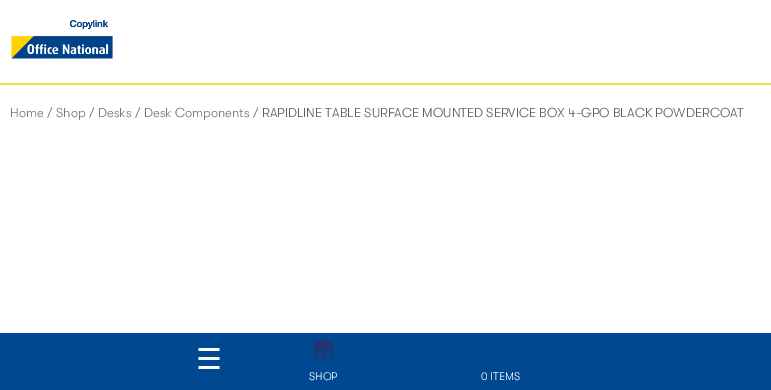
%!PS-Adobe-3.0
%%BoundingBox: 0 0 771 390
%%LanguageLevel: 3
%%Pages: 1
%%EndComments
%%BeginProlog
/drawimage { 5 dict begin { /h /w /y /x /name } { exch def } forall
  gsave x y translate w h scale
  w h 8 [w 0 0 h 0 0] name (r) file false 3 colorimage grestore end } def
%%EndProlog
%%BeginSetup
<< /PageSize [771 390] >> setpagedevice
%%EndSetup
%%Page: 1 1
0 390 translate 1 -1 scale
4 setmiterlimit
1 setgray
0 0 771 390 rectfill
0.969 0.855 0.306 setrgbcolor
0 83 771 2 rectfill
(images/1.raw) 11 20 102 39 drawimage
0 0.286 0.565 setrgbcolor
0 333 771 57 rectfill
(images/2.raw) 198 348 22 21 drawimage
(images/3.raw) 313 341 21 18 drawimage
/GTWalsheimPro-Light [13 0 0 -13 0 0] selectfont
0.463 setgray
10 117 moveto (Home) show
0.369 setgray
47 117 moveto (/) show
0.463 setgray
56 117 moveto (Shop) show
0.369 setgray
89 117 moveto (/) show
0.463 setgray
98 117 moveto (Desks) show
0.369 setgray
135 117 moveto (/) show
0.463 setgray
144 117 moveto (Desk Components) show
0.369 setgray
253 117 moveto (/ RAPIDLINE TABLE SURFACE MOUNTED SERVICE BOX 4-GPO BLACK POWDERCOAT) show
/GTWalsheimPro-Light [11 0 0 -11 0 0] selectfont
1 setgray
309 380 moveto (SHOP) show
481 380 moveto (0 ITEMS) show
showpage
%%EOF
